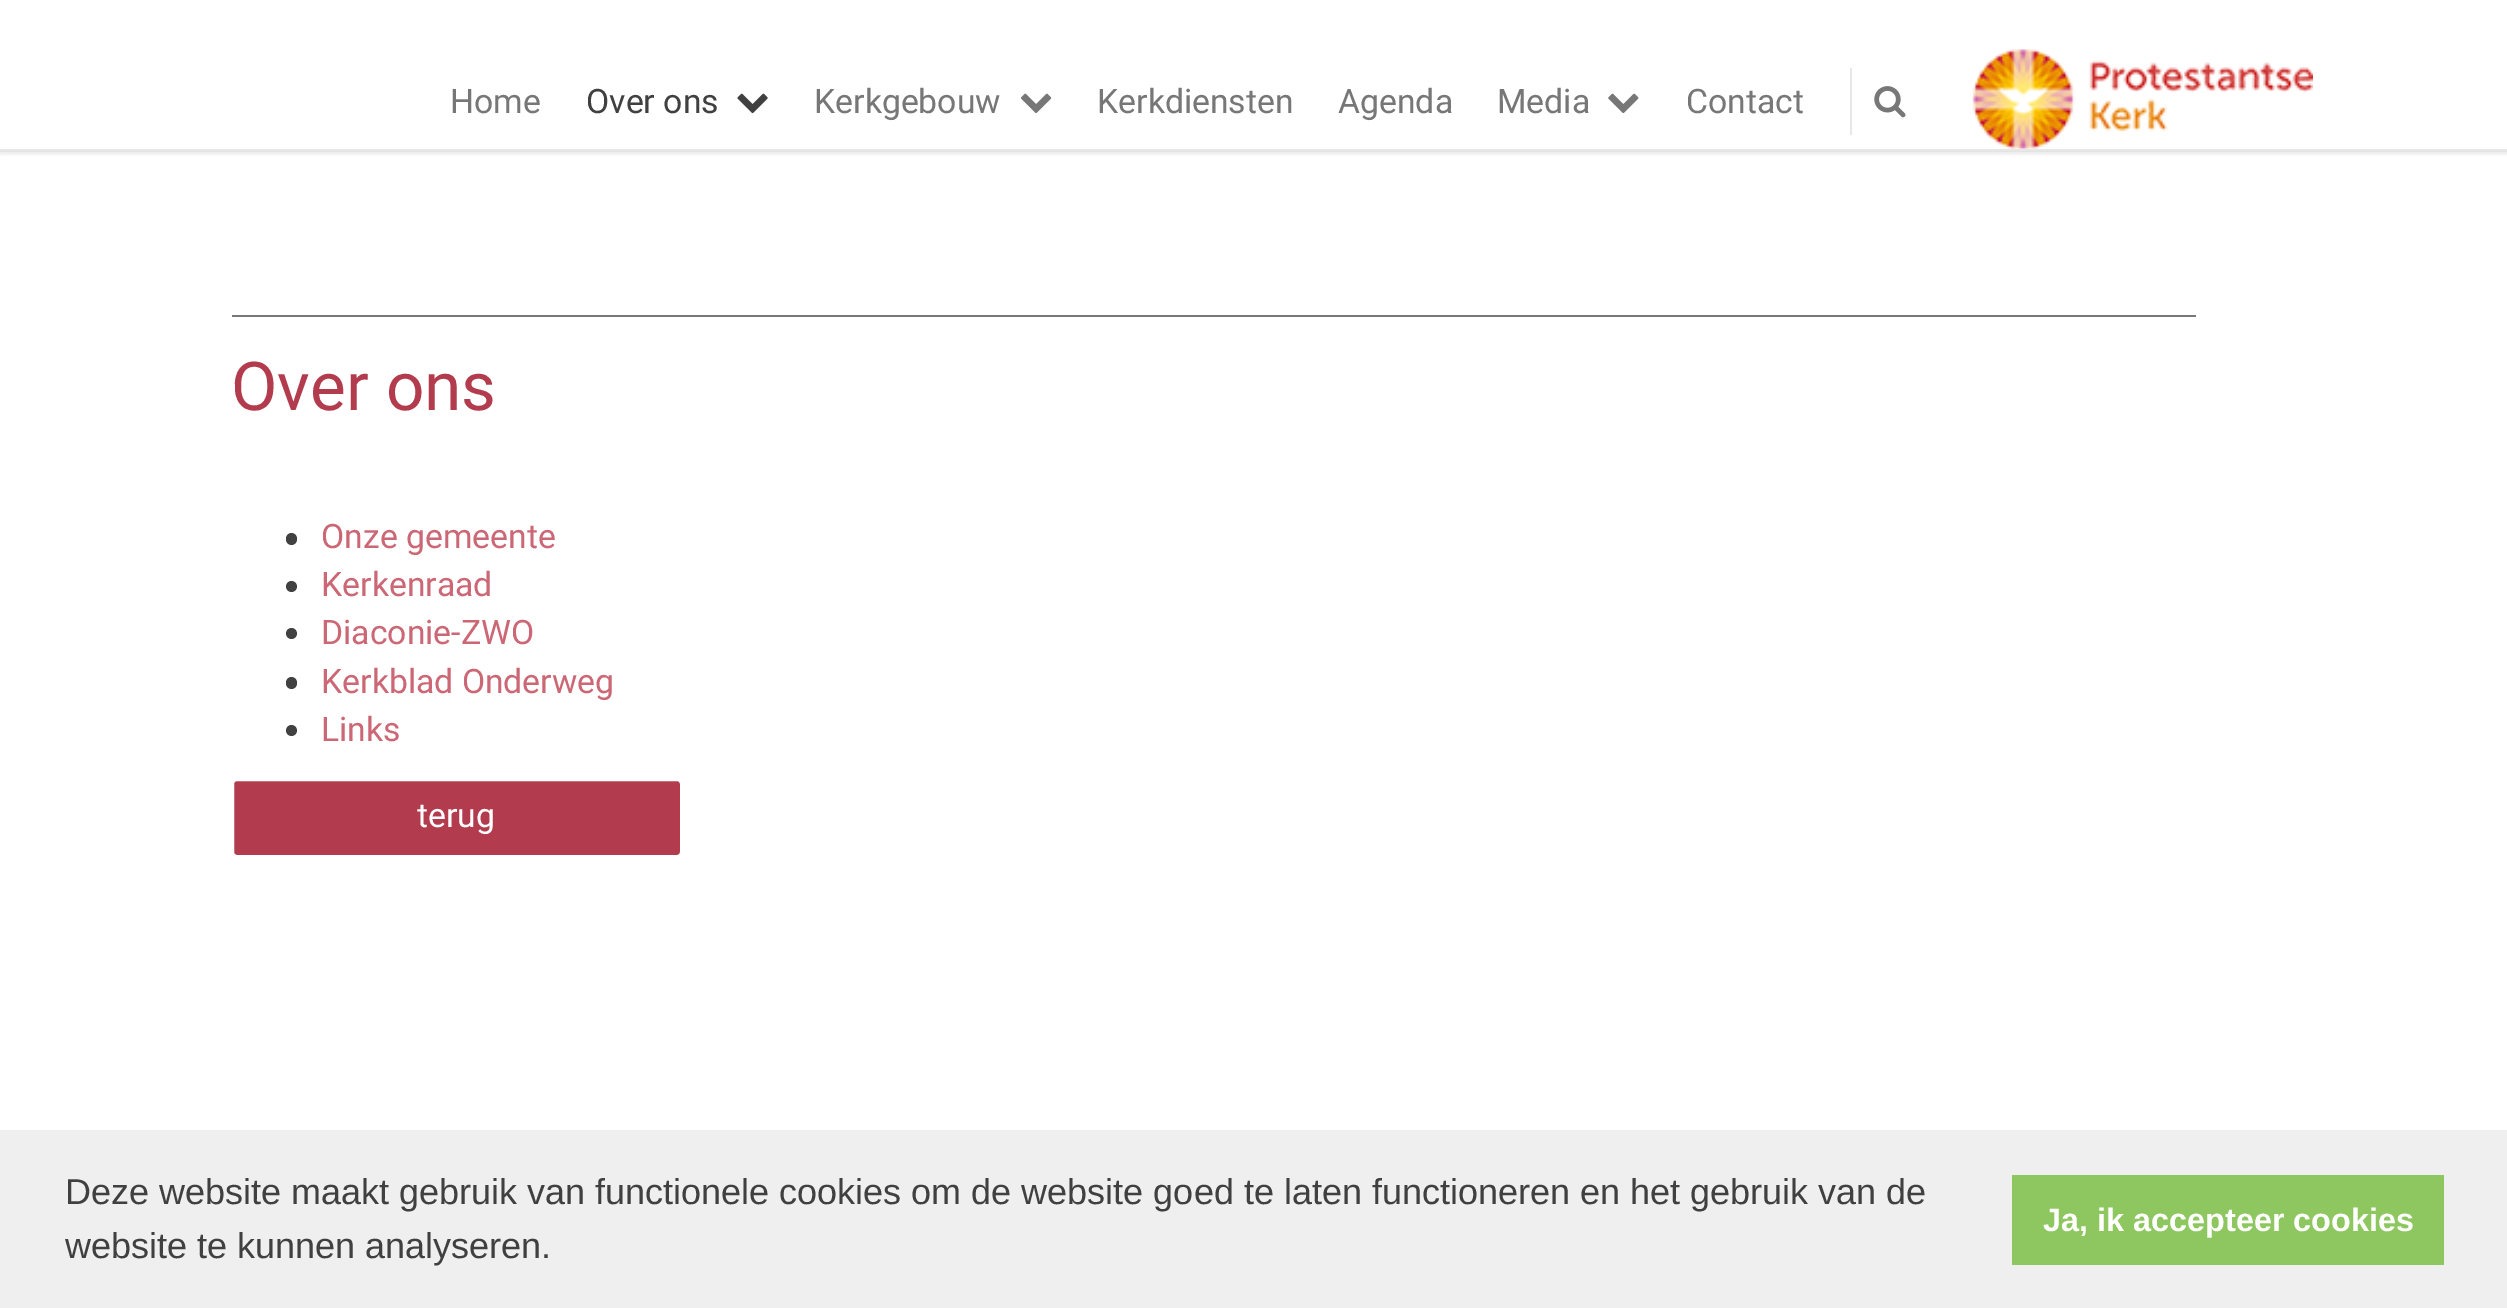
%!PS-Adobe-3.0
%%BoundingBox: 0 0 2507 1308
%%LanguageLevel: 3
%%Pages: 1
%%EndComments
%%BeginProlog
/setalpha { dup .setfillconstantalpha .setstrokeconstantalpha } def
/rrect { 5 dict begin { /r /h /w /y /x } { exch def } forall
  x r add y moveto x w add y 2 copy h add r arct x w add y h add x 1 index r arct
  x y h add x y r arct x y 2 copy exch w add exch r arct closepath end } def
/softshadow { 12 dict begin { /a /b /q /h /w /y /x } { exch def } forall gsave /was 0 def
  9 -2 -9 { dup b mul 4 div /e exch def 1 sub .425 mul 2.718 exch exp 1 add a .99 .min exch div /now exch def
    1 1 now sub 1 was sub div sub setalpha /was now def
    w h .min e 2 mul add 0 gt { x e sub y e sub w e 2 mul add h e 2 mul add
      q e add b .6 mul add w h .min 2 div e add .min 0 .max rrect fill } if } for grestore end } def
/drawimage { 5 dict begin { /h /w /y /x /name } { exch def } forall
  gsave x y translate w h scale
  w h 8 [w 0 0 h 0 0] name (r) file false 3 colorimage grestore end } def
%%EndProlog
%%BeginSetup
<< /PageSize [2507 1308] /PageUsesTransparency true >> setpagedevice
%%EndSetup
%%Page: 1 1
0 .pushpdf14devicefilter
0 1308 translate 1 -1 scale
4 setmiterlimit
1 setgray
0 0 2507 1308 rectfill
gsave
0 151 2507 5 rectclip
0 setgray
0 0 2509 151 0 3.5 0.22 softshadow
grestore
0.906 setgray
0 149 2507 2 rectfill
(images/1.raw) 737 93 31 21 drawimage
(images/2.raw) 1021 93 31 20 drawimage
(images/3.raw) 1608 93 31 21 drawimage
1850 68 2 67 rectfill
(images/4.raw) 1874 86 32 32 drawimage
(images/5.raw) 1972 49 341 100 drawimage
0.467 setgray
232 315 1964 2 rectfill
0.255 setgray
286 533 11 12 5.5 rrect fill
newpath 291.5 586.5 5.5 0 360 arc closepath fill
newpath 291.5 633.5 5.5 0 360 arc closepath fill
286 677 11 12 5.5 rrect fill
newpath 291.5 730.5 5.5 0 360 arc closepath fill
0.698 0.235 0.302 setrgbcolor
233 780 448 76 4 rrect gsave fill grestore
1 setgray
2 setlinewidth
stroke
0.937 setgray
0 1130 2507 178 rectfill
0.557 0.78 0.376 setrgbcolor
2012 1175 432 90 rectfill
/Roboto-Regular [33.75 0 0 -33.75 0 0] selectfont
0.467 setgray
450 113 moveto (Home) show
0.251 setgray
586 113 moveto (Over ons) show
0.467 setgray
814 113 moveto (Kerkgebouw) show
1097 113 moveto (Kerkdiensten) show
1338 113 moveto (Agenda) show
1497 113 moveto (Media) show
1686 113 moveto (Contact) show
/Roboto-Regular [67.5 0 0 -67.5 0 0] selectfont
0.698 0.235 0.302 setrgbcolor
231 410 moveto (Over ons) show
/Roboto-Regular [33.75 0 0 -33.75 0 0] selectfont
0.8 0.404 0.459 setrgbcolor
321 548 moveto (Onze gemeente) show
321 596 moveto (Kerkenraad) show
321 644 moveto (Diaconie-ZWO) show
321 693 moveto (Kerkblad Onderweg) show
321 741 moveto (Links) show
1 setgray
417 827 moveto (terug) show
/LiberationSans-Regular [36 0 0 -36 0 0] selectfont
0.251 setgray
65 1204 moveto (Deze website maakt gebruik van functionele cookies om de website goed te laten functioneren en het gebruik van de) show
65 1258 moveto (website te kunnen analyseren.) show
/LiberationSans-Bold [32.4 0 0 -32.4 0 0] selectfont
1 setgray
2043 1231 moveto (Ja, ik accepteer cookies) show
.poppdf14devicefilter showpage
%%EOF
